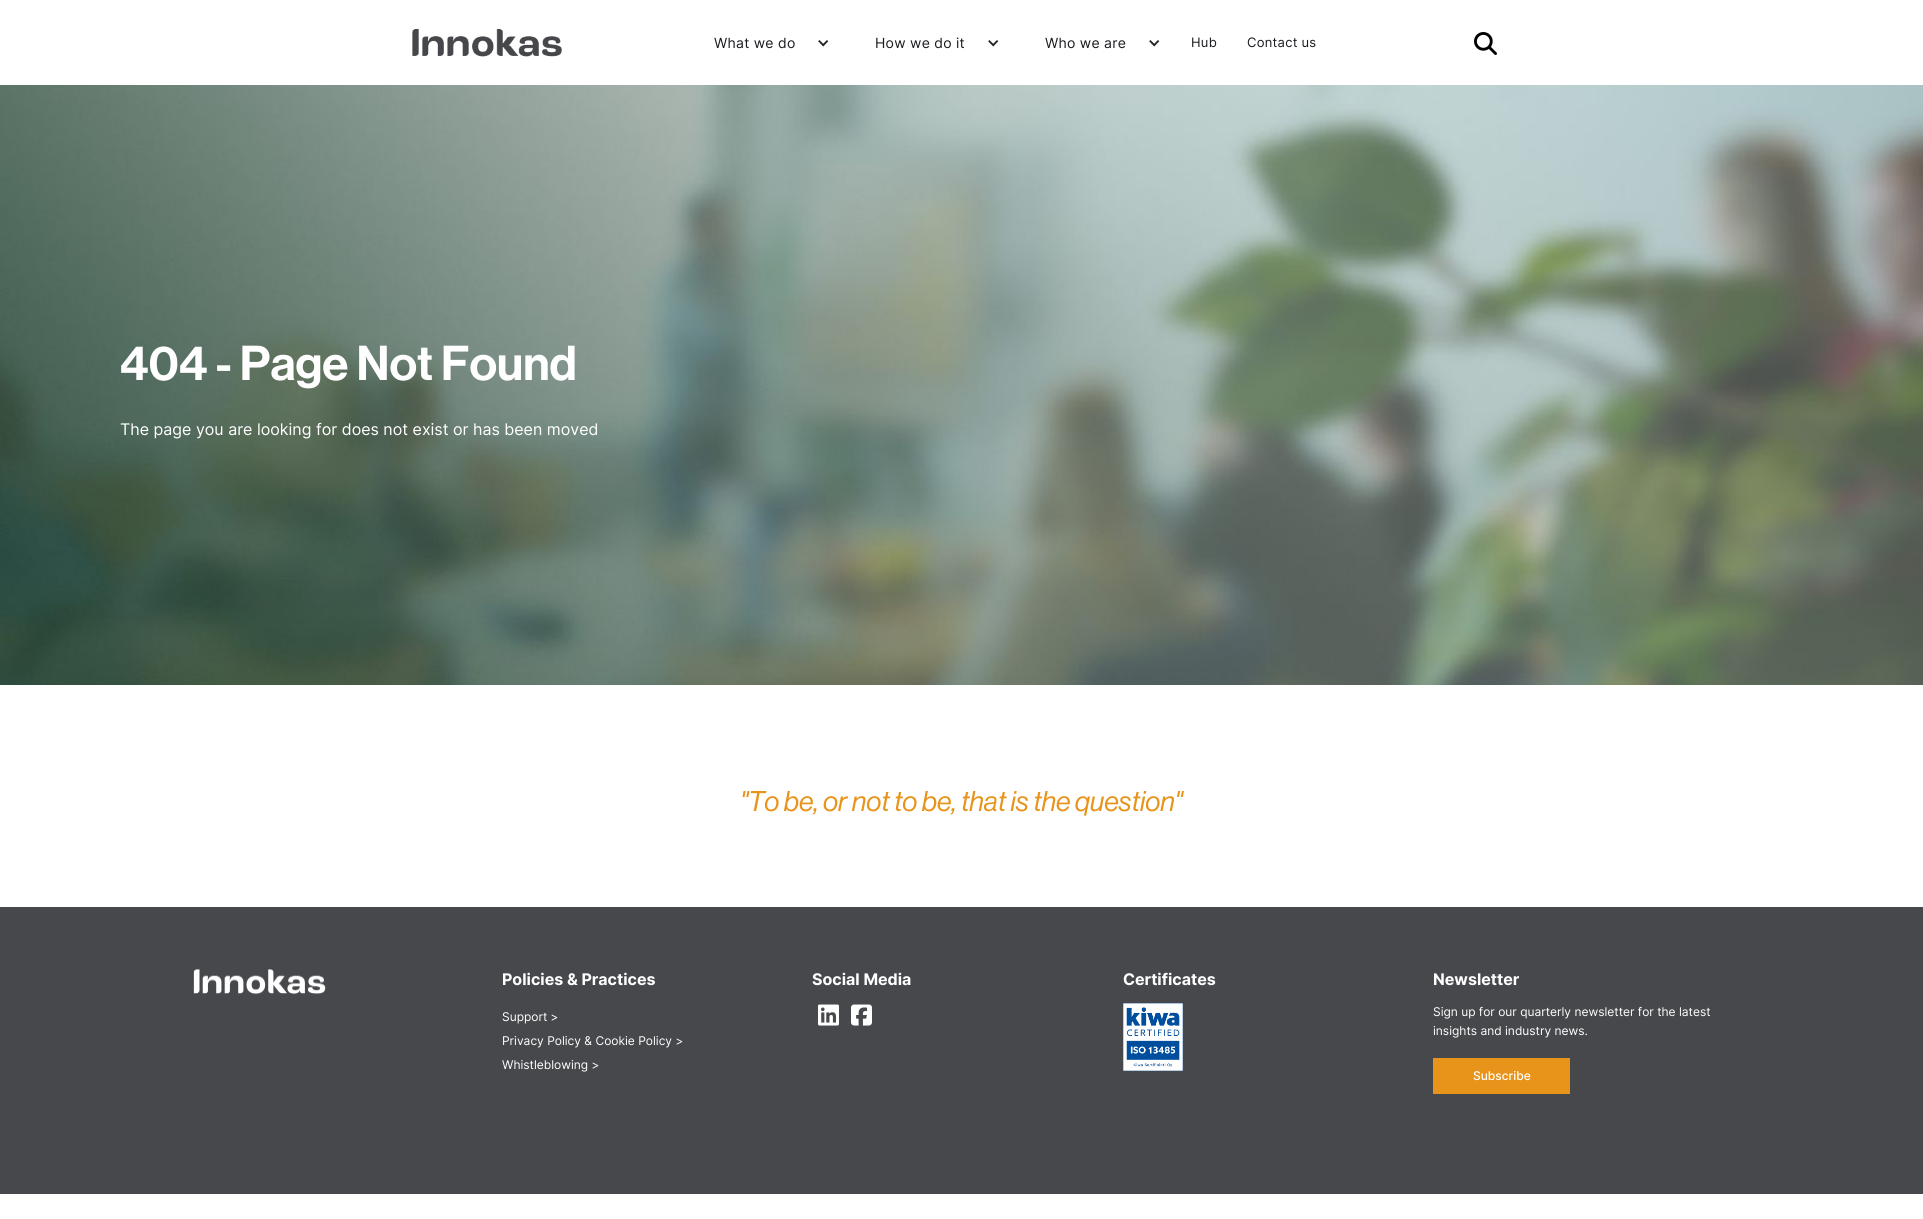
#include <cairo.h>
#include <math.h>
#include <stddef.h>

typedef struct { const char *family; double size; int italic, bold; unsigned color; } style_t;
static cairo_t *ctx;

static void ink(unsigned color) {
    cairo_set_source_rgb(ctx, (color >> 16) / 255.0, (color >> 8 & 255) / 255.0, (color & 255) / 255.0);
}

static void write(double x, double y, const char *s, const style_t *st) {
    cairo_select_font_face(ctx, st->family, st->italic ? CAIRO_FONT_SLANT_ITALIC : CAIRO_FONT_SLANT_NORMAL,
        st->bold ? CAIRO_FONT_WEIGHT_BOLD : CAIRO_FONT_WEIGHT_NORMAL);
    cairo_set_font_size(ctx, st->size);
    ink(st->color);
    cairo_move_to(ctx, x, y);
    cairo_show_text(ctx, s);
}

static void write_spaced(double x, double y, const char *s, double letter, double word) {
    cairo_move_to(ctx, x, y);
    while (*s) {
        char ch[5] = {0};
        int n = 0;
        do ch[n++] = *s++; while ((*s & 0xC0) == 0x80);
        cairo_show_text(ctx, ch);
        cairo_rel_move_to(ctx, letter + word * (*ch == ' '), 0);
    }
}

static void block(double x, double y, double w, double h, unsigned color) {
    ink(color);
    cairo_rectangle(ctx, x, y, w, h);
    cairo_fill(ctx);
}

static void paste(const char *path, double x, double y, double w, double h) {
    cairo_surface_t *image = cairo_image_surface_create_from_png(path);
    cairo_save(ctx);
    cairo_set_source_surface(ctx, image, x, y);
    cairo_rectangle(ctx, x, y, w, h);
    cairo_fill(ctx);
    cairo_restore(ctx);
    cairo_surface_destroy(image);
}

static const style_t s1 = {"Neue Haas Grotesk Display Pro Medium", 48, 0, 0, 0xffffff};
static const style_t s2 = {"Inter", 16, 0, 0, 0xffffff};
static const style_t s3 = {"Neue Haas Grotesk Display Pro Medium", 28, 1, 0, 0xe8931a};
static const style_t s4 = {"Inter", 16, 0, 1, 0xffffff};
static const style_t s5 = {"Inter", 12, 0, 0, 0xffffff};
static const style_t s6 = {"Inter Medium", 12, 0, 0, 0xffffff};

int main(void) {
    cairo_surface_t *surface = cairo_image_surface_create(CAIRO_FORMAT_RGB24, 1923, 1219);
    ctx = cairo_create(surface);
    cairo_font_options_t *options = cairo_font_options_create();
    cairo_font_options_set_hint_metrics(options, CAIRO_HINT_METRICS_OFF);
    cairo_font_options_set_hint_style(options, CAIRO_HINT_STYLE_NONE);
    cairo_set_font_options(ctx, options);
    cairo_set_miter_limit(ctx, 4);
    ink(0xffffff);
    cairo_paint(ctx);
    paste("pic1.png", 412, 29, 150, 28);
    cairo_select_font_face(ctx, "Inter", CAIRO_FONT_SLANT_NORMAL, CAIRO_FONT_WEIGHT_NORMAL);
    cairo_set_font_size(ctx, 14);
    ink(0x1a1b1f);
    write_spaced(714, 48, "What we do", 0.25, 0);
    paste("pic2.png", 818, 40, 11, 7);
    write_spaced(875, 48, "How we do it", 0.25, 0);
    paste("pic2.png", 988, 40, 11, 7);
    write_spaced(1045, 48, "Who we are", 0.25, 0);
    paste("pic2.png", 1149, 40, 11, 7);
    cairo_set_font_size(ctx, 13);
    write_spaced(1191, 47, "Hub", 0.25, 0);
    write_spaced(1247, 47, "Contact us", 0.25, 0);
    paste("pic3.png", 1474, 32, 23, 23);
    paste("pic4.png", 0, 85, 1923, 600);
    write(120, 380, "404 - Page Not Found", &s1);
    write(120, 435, "The page you are looking for does not exist or has been moved", &s2);
    write(740, 811, "\"To be, or not to be, that is the question\"", &s3);
    block(0, 907, 1923, 287, 0x46484c);
    paste("pic5.png", 193, 969, 133, 26);
    write(502, 985, "Policies & Practices", &s4);
    write(502, 1021, "Support >", &s5);
    write(502, 1045, "Privacy Policy & Cookie Policy >", &s5);
    write(502, 1069, "Whistleblowing >", &s5);
    write(812, 985, "Social Media", &s4);
    paste("pic6.png", 818, 1004, 21, 22);
    paste("pic7.png", 851, 1004, 21, 22);
    write(1123, 985, "Certificates", &s4);
    paste("pic8.png", 1123, 1003, 60, 68);
    write(1433, 985, "Newsletter", &s4);
    write(1433, 1016, "Sign up for our quarterly newsletter for the latest", &s5);
    write(1433, 1035, "insights and industry news.", &s5);
    block(1433, 1058, 137, 36, 0xe8931a);
    write(1473, 1080, "Subscribe", &s6);
    cairo_surface_write_to_png(surface, "screenshot.png");
    cairo_font_options_destroy(options);
    cairo_destroy(ctx);
    cairo_surface_destroy(surface);
    return 0;
}
